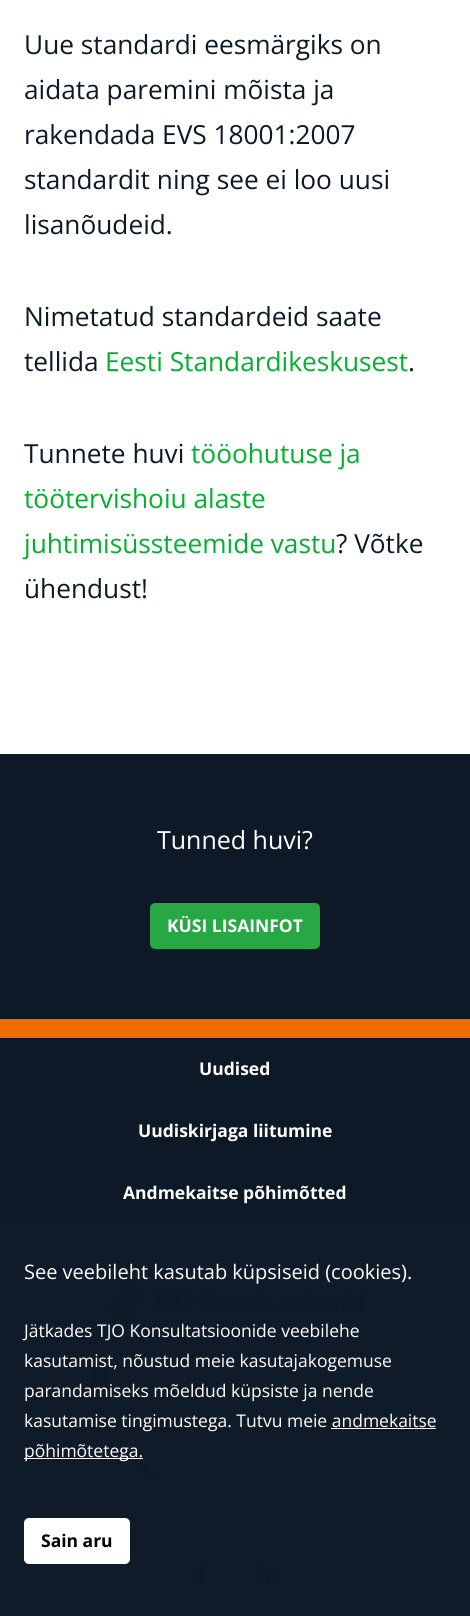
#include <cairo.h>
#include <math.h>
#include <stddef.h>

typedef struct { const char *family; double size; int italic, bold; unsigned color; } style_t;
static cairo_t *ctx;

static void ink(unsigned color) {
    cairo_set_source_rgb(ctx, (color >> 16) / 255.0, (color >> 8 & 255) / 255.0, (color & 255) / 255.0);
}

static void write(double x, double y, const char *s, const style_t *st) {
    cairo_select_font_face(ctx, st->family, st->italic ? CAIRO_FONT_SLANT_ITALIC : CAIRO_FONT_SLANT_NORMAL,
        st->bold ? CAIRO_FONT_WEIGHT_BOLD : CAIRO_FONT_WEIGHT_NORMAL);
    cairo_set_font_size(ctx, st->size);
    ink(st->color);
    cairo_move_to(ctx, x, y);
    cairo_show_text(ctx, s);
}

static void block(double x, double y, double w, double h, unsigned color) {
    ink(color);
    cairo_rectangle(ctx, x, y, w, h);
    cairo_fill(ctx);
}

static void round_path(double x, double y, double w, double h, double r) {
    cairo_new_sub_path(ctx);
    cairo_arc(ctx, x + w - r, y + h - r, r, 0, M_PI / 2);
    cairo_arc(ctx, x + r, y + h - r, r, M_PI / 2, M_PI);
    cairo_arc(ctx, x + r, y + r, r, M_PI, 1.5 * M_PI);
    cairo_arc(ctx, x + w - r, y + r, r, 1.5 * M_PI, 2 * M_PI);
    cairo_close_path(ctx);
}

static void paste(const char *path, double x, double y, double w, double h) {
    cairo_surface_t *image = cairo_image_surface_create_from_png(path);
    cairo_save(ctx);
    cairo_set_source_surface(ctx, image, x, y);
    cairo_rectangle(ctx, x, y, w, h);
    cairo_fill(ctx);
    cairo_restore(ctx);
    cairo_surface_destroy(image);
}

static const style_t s1 = {"Open Sans", 26.25, 0, 0, 0x0d1926};
static const style_t s2 = {"Open Sans", 26.25, 0, 0, 0x00b02e};
static const style_t s3 = {"Open Sans", 25, 0, 0, 0xffffff};
static const style_t s4 = {"Open Sans", 17.5, 0, 1, 0xffffff};
static const style_t s5 = {"Open Sans", 20, 0, 0, 0xffffff};
static const style_t s6 = {"Open Sans", 17.5, 0, 0, 0xffffff};
static const style_t s7 = {"Open Sans", 17.5, 0, 1, 0x000000};

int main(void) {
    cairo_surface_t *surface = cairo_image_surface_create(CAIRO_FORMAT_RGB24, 470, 1616);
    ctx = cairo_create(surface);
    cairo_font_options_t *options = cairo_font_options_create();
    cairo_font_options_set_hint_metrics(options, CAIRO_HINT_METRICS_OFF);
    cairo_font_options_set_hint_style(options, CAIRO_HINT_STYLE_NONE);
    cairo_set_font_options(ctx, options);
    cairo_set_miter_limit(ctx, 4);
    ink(0xffffff);
    cairo_paint(ctx);
    block(0, 1224, 470, 392, 0x0f1b28);
    write(24, 54, "Uue standardi eesmärgiks on", &s1);
    write(24, 99, "aidata paremini mõista ja", &s1);
    write(24, 144, "rakendada EVS 18001:2007", &s1);
    write(24, 189, "standardit ning see ei loo uusi", &s1);
    write(24, 234, "lisanõudeid.", &s1);
    write(24, 326, "Nimetatud standardeid saate", &s1);
    write(24, 371, "tellida", &s1);
    write(105, 371, "Eesti Standardikeskusest", &s2);
    write(408, 371, ".", &s1);
    write(24, 463, "Tunnete huvi", &s1);
    write(191, 463, "tööohutuse ja", &s2);
    write(24, 508, "töötervishoiu alaste", &s2);
    write(24, 553, "juhtimisüssteemide vastu", &s2);
    write(336, 553, "? Võtke", &s1);
    write(24, 598, "ühendust!", &s1);
    block(0, 754, 470, 265, 0x0d1926);
    write(157, 849, "Tunned huvi?", &s3);
    ink(0x28a745);
    round_path(151.5, 904.5, 167, 43, 3.5);
    cairo_fill_preserve(ctx);
    cairo_set_line_width(ctx, 3);
    cairo_stroke(ctx);
    write(167, 932, "KÜSI LISAINFOT", &s4);
    block(0, 1019, 470, 19, 0xef6c00);
    block(0, 1038, 470, 186, 0x0d1926);
    write(199, 1075, "Uudised", &s4);
    write(138, 1137, "Uudiskirjaga liitumine", &s4);
    write(123, 1199, "Andmekaitse põhimõtted", &s4);
    paste("pic1.png", 107, 1273, 256, 59);
    paste("pic2.png", 92, 1368, 16, 22);
    paste("pic3.png", 159, 1416, 20, 15);
    paste("pic4.png", 142, 1462, 16, 16);
    paste("pic5.png", 196, 1565, 11, 20);
    paste("pic6.png", 258, 1565, 21, 20);
    write(24, 1279, "See veebileht kasutab küpsiseid (cookies).", &s5);
    write(24, 1337, "Jätkades TJO Konsultatsioonide veebilehe", &s6);
    write(24, 1367, "kasutamist, nõustud meie kasutajakogemuse", &s6);
    write(24, 1397, "parandamiseks mõeldud küpsiste ja nende", &s6);
    write(24, 1427, "kasutamise tingimustega. Tutvu meie andmekaitse", &s6);
    block(24, 1458, 119, 1, 0xffffff);
    write(24, 1457, "põhimõtetega.", &s6);
    block(331, 1428, 105, 1, 0xffffff);
    round_path(24, 1518, 106, 46, 5);
    cairo_fill(ctx);
    write(41, 1547, "Sain aru", &s7);
    cairo_surface_write_to_png(surface, "screenshot.png");
    cairo_font_options_destroy(options);
    cairo_destroy(ctx);
    cairo_surface_destroy(surface);
    return 0;
}
